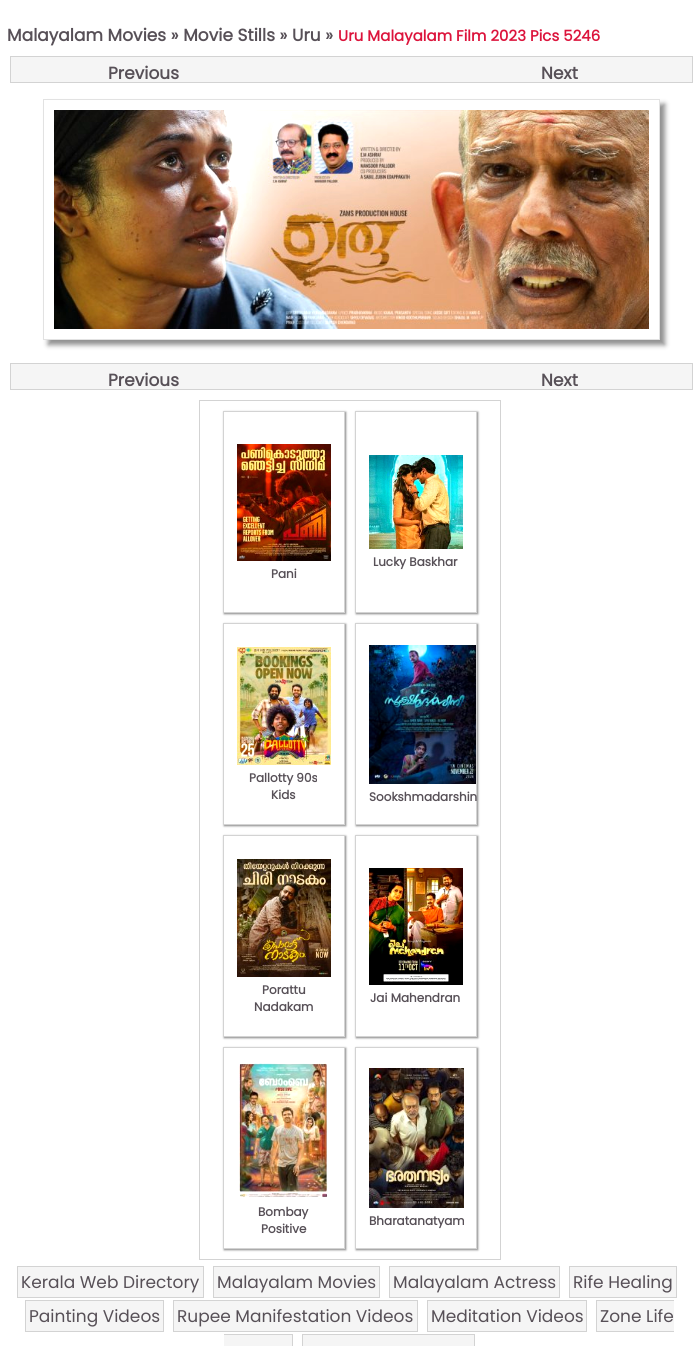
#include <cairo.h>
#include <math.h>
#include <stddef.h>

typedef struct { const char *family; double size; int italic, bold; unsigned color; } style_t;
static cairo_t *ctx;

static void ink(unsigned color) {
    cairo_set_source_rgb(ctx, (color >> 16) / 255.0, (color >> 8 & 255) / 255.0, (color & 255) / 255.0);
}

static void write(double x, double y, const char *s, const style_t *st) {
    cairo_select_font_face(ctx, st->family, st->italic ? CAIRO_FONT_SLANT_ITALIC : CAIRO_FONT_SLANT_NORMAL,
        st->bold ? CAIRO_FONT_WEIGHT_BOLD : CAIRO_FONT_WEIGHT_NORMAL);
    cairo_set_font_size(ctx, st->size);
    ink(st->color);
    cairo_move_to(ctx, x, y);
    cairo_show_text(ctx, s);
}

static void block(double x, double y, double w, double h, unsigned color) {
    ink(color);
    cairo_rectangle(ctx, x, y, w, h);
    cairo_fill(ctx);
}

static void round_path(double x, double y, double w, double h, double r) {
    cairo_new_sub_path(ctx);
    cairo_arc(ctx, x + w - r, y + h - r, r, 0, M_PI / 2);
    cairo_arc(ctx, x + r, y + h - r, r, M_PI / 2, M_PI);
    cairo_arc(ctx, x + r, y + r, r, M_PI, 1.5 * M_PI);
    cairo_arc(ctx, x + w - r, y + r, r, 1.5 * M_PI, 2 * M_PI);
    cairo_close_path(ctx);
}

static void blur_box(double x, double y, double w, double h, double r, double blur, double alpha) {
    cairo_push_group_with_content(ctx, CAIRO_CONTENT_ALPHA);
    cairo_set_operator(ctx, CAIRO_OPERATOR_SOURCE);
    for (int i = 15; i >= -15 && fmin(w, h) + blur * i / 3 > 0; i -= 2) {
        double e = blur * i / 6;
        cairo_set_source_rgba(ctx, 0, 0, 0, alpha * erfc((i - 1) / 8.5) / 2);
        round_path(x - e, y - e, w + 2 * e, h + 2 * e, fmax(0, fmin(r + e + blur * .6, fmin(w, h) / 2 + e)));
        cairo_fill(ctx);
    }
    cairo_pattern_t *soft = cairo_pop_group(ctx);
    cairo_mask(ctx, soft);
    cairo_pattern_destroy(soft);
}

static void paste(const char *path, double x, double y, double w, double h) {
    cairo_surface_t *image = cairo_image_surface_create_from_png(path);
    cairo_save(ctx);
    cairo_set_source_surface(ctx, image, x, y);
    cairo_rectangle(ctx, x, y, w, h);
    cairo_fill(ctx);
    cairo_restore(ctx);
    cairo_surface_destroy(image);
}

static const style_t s1 = {"Poppins", 17, 0, 1, 0x575057};
static const style_t s2 = {"Poppins", 15, 0, 1, 0xdc143c};
static const style_t s3 = {"Poppins", 12, 0, 1, 0x575057};
static const style_t s4 = {"Poppins", 17, 0, 0, 0x575057};

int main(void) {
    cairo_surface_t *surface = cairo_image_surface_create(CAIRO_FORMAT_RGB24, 699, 1346);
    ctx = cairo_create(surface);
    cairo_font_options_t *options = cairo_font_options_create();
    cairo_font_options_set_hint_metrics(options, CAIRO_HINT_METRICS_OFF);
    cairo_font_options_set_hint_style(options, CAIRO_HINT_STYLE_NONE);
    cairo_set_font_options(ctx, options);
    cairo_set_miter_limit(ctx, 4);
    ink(0xffffff);
    cairo_paint(ctx);
    write(7, 41, "Malayalam Movies » Movie Stills » Uru »", &s1);
    write(338, 41, "Uru Malayalam Film 2023 Pics 5246", &s2);
    ink(0xf5f5f5);
    cairo_rectangle(ctx, 10.5, 56.5, 682, 26);
    cairo_fill_preserve(ctx);
    ink(0xd3d3d3);
    cairo_set_line_width(ctx, 1);
    cairo_stroke(ctx);
    write(108, 79, "Previous", &s1);
    write(541, 79, "Next", &s1);
    cairo_save(ctx);
    cairo_set_fill_rule(ctx, CAIRO_FILL_RULE_EVEN_ODD);
    cairo_new_path(ctx);
    cairo_move_to(ctx, 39, 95);
    cairo_line_to(ctx, 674, 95);
    cairo_line_to(ctx, 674, 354);
    cairo_line_to(ctx, 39, 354);
    cairo_close_path(ctx);
    cairo_move_to(ctx, 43, 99);
    cairo_line_to(ctx, 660, 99);
    cairo_line_to(ctx, 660, 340);
    cairo_line_to(ctx, 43, 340);
    cairo_close_path(ctx);
    cairo_clip(ctx);
    ink(0x909090);
    blur_box(48, 104, 617, 241, 0, 2.5, 1);
    cairo_restore(ctx);
    cairo_rectangle(ctx, 43.5, 99.5, 616, 240);
    ink(0xe2e2e2);
    cairo_stroke(ctx);
    paste("pic1.png", 54, 110, 595, 219);
    ink(0xf5f5f5);
    cairo_rectangle(ctx, 10.5, 363.5, 682, 26);
    cairo_fill_preserve(ctx);
    ink(0xd3d3d3);
    cairo_stroke(ctx);
    write(108, 386, "Previous", &s1);
    write(541, 386, "Next", &s1);
    cairo_rectangle(ctx, 199.5, 400.5, 301, 859);
    ink(0xd3d3d3);
    cairo_stroke(ctx);
    cairo_save(ctx);
    cairo_set_fill_rule(ctx, CAIRO_FILL_RULE_EVEN_ODD);
    cairo_new_path(ctx);
    cairo_move_to(ctx, 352, 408);
    cairo_line_to(ctx, 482, 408);
    cairo_line_to(ctx, 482, 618);
    cairo_line_to(ctx, 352, 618);
    cairo_close_path(ctx);
    cairo_move_to(ctx, 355, 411);
    cairo_line_to(ctx, 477, 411);
    cairo_line_to(ctx, 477, 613);
    cairo_line_to(ctx, 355, 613);
    cairo_close_path(ctx);
    cairo_clip(ctx);
    ink(0x888888);
    blur_box(356, 412, 122, 202, 0, 1, 1);
    cairo_restore(ctx);
    cairo_rectangle(ctx, 355.5, 411.5, 121, 201);
    cairo_stroke(ctx);
    paste("pic2.png", 369, 455, 94, 94);
    write(373, 566, "Lucky Baskhar", &s3);
    cairo_save(ctx);
    cairo_set_fill_rule(ctx, CAIRO_FILL_RULE_EVEN_ODD);
    cairo_new_path(ctx);
    cairo_move_to(ctx, 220, 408);
    cairo_line_to(ctx, 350, 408);
    cairo_line_to(ctx, 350, 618);
    cairo_line_to(ctx, 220, 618);
    cairo_close_path(ctx);
    cairo_move_to(ctx, 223, 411);
    cairo_line_to(ctx, 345, 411);
    cairo_line_to(ctx, 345, 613);
    cairo_line_to(ctx, 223, 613);
    cairo_close_path(ctx);
    cairo_clip(ctx);
    ink(0x888888);
    blur_box(224, 412, 122, 202, 0, 1, 1);
    cairo_restore(ctx);
    cairo_rectangle(ctx, 223.5, 411.5, 121, 201);
    ink(0xd3d3d3);
    cairo_stroke(ctx);
    paste("pic3.png", 237, 444, 94, 117);
    write(271, 578, "Pani", &s3);
    cairo_save(ctx);
    cairo_set_fill_rule(ctx, CAIRO_FILL_RULE_EVEN_ODD);
    cairo_new_path(ctx);
    cairo_move_to(ctx, 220, 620);
    cairo_line_to(ctx, 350, 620);
    cairo_line_to(ctx, 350, 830);
    cairo_line_to(ctx, 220, 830);
    cairo_close_path(ctx);
    cairo_move_to(ctx, 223, 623);
    cairo_line_to(ctx, 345, 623);
    cairo_line_to(ctx, 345, 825);
    cairo_line_to(ctx, 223, 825);
    cairo_close_path(ctx);
    cairo_clip(ctx);
    ink(0x888888);
    blur_box(224, 624, 122, 202, 0, 1, 1);
    cairo_restore(ctx);
    cairo_rectangle(ctx, 223.5, 623.5, 121, 201);
    ink(0xd3d3d3);
    cairo_stroke(ctx);
    paste("pic4.png", 237, 647, 94, 118);
    write(249, 782, "Pallotty 90s", &s3);
    write(271, 799, "Kids", &s3);
    cairo_save(ctx);
    cairo_set_fill_rule(ctx, CAIRO_FILL_RULE_EVEN_ODD);
    cairo_new_path(ctx);
    cairo_move_to(ctx, 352, 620);
    cairo_line_to(ctx, 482, 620);
    cairo_line_to(ctx, 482, 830);
    cairo_line_to(ctx, 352, 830);
    cairo_close_path(ctx);
    cairo_move_to(ctx, 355, 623);
    cairo_line_to(ctx, 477, 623);
    cairo_line_to(ctx, 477, 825);
    cairo_line_to(ctx, 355, 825);
    cairo_close_path(ctx);
    cairo_clip(ctx);
    ink(0x888888);
    blur_box(356, 624, 122, 202, 0, 1, 1);
    cairo_restore(ctx);
    cairo_rectangle(ctx, 355.5, 623.5, 121, 201);
    ink(0xd3d3d3);
    cairo_stroke(ctx);
    paste("pic5.png", 369, 645, 107, 139);
    write(369, 801, "Sookshmadarshin", &s3);
    cairo_save(ctx);
    cairo_set_fill_rule(ctx, CAIRO_FILL_RULE_EVEN_ODD);
    cairo_new_path(ctx);
    cairo_move_to(ctx, 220, 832);
    cairo_line_to(ctx, 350, 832);
    cairo_line_to(ctx, 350, 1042);
    cairo_line_to(ctx, 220, 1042);
    cairo_close_path(ctx);
    cairo_move_to(ctx, 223, 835);
    cairo_line_to(ctx, 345, 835);
    cairo_line_to(ctx, 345, 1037);
    cairo_line_to(ctx, 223, 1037);
    cairo_close_path(ctx);
    cairo_clip(ctx);
    ink(0x888888);
    blur_box(224, 836, 122, 202, 0, 1, 1);
    cairo_restore(ctx);
    cairo_rectangle(ctx, 223.5, 835.5, 121, 201);
    ink(0xd3d3d3);
    cairo_stroke(ctx);
    paste("pic6.png", 237, 859, 94, 118);
    write(262, 994, "Porattu", &s3);
    write(254, 1011, "Nadakam", &s3);
    cairo_save(ctx);
    cairo_set_fill_rule(ctx, CAIRO_FILL_RULE_EVEN_ODD);
    cairo_new_path(ctx);
    cairo_move_to(ctx, 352, 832);
    cairo_line_to(ctx, 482, 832);
    cairo_line_to(ctx, 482, 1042);
    cairo_line_to(ctx, 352, 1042);
    cairo_close_path(ctx);
    cairo_move_to(ctx, 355, 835);
    cairo_line_to(ctx, 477, 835);
    cairo_line_to(ctx, 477, 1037);
    cairo_line_to(ctx, 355, 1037);
    cairo_close_path(ctx);
    cairo_clip(ctx);
    ink(0x888888);
    blur_box(356, 836, 122, 202, 0, 1, 1);
    cairo_restore(ctx);
    cairo_rectangle(ctx, 355.5, 835.5, 121, 201);
    ink(0xd3d3d3);
    cairo_stroke(ctx);
    paste("pic7.png", 369, 868, 94, 117);
    write(370, 1002, "Jai Mahendran", &s3);
    cairo_save(ctx);
    cairo_set_fill_rule(ctx, CAIRO_FILL_RULE_EVEN_ODD);
    cairo_new_path(ctx);
    cairo_move_to(ctx, 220, 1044);
    cairo_line_to(ctx, 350, 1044);
    cairo_line_to(ctx, 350, 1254);
    cairo_line_to(ctx, 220, 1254);
    cairo_close_path(ctx);
    cairo_move_to(ctx, 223, 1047);
    cairo_line_to(ctx, 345, 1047);
    cairo_line_to(ctx, 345, 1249);
    cairo_line_to(ctx, 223, 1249);
    cairo_close_path(ctx);
    cairo_clip(ctx);
    ink(0x888888);
    blur_box(224, 1048, 122, 202, 0, 1, 1);
    cairo_restore(ctx);
    cairo_rectangle(ctx, 223.5, 1047.5, 121, 201);
    ink(0xd3d3d3);
    cairo_stroke(ctx);
    paste("pic8.png", 239, 1063, 89, 136);
    write(258, 1216, "Bombay", &s3);
    write(261, 1233, "Positive", &s3);
    cairo_save(ctx);
    cairo_set_fill_rule(ctx, CAIRO_FILL_RULE_EVEN_ODD);
    cairo_new_path(ctx);
    cairo_move_to(ctx, 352, 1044);
    cairo_line_to(ctx, 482, 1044);
    cairo_line_to(ctx, 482, 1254);
    cairo_line_to(ctx, 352, 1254);
    cairo_close_path(ctx);
    cairo_move_to(ctx, 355, 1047);
    cairo_line_to(ctx, 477, 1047);
    cairo_line_to(ctx, 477, 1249);
    cairo_line_to(ctx, 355, 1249);
    cairo_close_path(ctx);
    cairo_clip(ctx);
    ink(0x888888);
    blur_box(356, 1048, 122, 202, 0, 1, 1);
    cairo_restore(ctx);
    cairo_rectangle(ctx, 355.5, 1047.5, 121, 201);
    ink(0xd3d3d3);
    cairo_stroke(ctx);
    paste("pic9.png", 369, 1068, 95, 140);
    write(369, 1225, "Bharatanatyam", &s3);
    ink(0xf5f5f5);
    cairo_rectangle(ctx, 17.5, 1266.5, 186, 31);
    cairo_fill_preserve(ctx);
    ink(0xd3d3d3);
    cairo_stroke(ctx);
    write(21, 1288, "Kerala Web Directory", &s4);
    ink(0xf5f5f5);
    cairo_rectangle(ctx, 213.5, 1266.5, 166, 31);
    cairo_fill_preserve(ctx);
    ink(0xd3d3d3);
    cairo_stroke(ctx);
    write(217, 1288, "Malayalam Movies", &s4);
    ink(0xf5f5f5);
    cairo_rectangle(ctx, 389.5, 1266.5, 170, 31);
    cairo_fill_preserve(ctx);
    ink(0xd3d3d3);
    cairo_stroke(ctx);
    write(393, 1288, "Malayalam Actress", &s4);
    ink(0xf5f5f5);
    cairo_rectangle(ctx, 569.5, 1266.5, 107, 31);
    cairo_fill_preserve(ctx);
    ink(0xd3d3d3);
    cairo_stroke(ctx);
    write(573, 1288, "Rife Healing", &s4);
    ink(0xf5f5f5);
    cairo_rectangle(ctx, 25.5, 1300.5, 138, 31);
    cairo_fill_preserve(ctx);
    ink(0xd3d3d3);
    cairo_stroke(ctx);
    write(29, 1322, "Painting Videos", &s4);
    ink(0xf5f5f5);
    cairo_rectangle(ctx, 173.5, 1300.5, 244, 31);
    cairo_fill_preserve(ctx);
    ink(0xd3d3d3);
    cairo_stroke(ctx);
    write(177, 1322, "Rupee Manifestation Videos", &s4);
    ink(0xf5f5f5);
    cairo_rectangle(ctx, 427.5, 1300.5, 159, 31);
    cairo_fill_preserve(ctx);
    ink(0xd3d3d3);
    cairo_stroke(ctx);
    write(431, 1322, "Meditation Videos", &s4);
    block(597, 1301, 77, 30, 0xf5f5f5);
    write(600, 1322, "Zone Life", &s4);
    block(596, 1300, 78, 1, 0xd3d3d3);
    block(596, 1331, 78, 1, 0xd3d3d3);
    block(596, 1300, 1, 32, 0xd3d3d3);
    block(224, 1335, 68, 11, 0xf5f5f5);
    block(224, 1334, 69, 1, 0xd3d3d3);
    block(292, 1334, 1, 12, 0xd3d3d3);
    ink(0xf5f5f5);
    cairo_rectangle(ctx, 302.5, 1334.5, 172, 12);
    cairo_fill_preserve(ctx);
    ink(0xd3d3d3);
    cairo_stroke(ctx);
    cairo_surface_write_to_png(surface, "screenshot.png");
    cairo_font_options_destroy(options);
    cairo_destroy(ctx);
    cairo_surface_destroy(surface);
    return 0;
}
